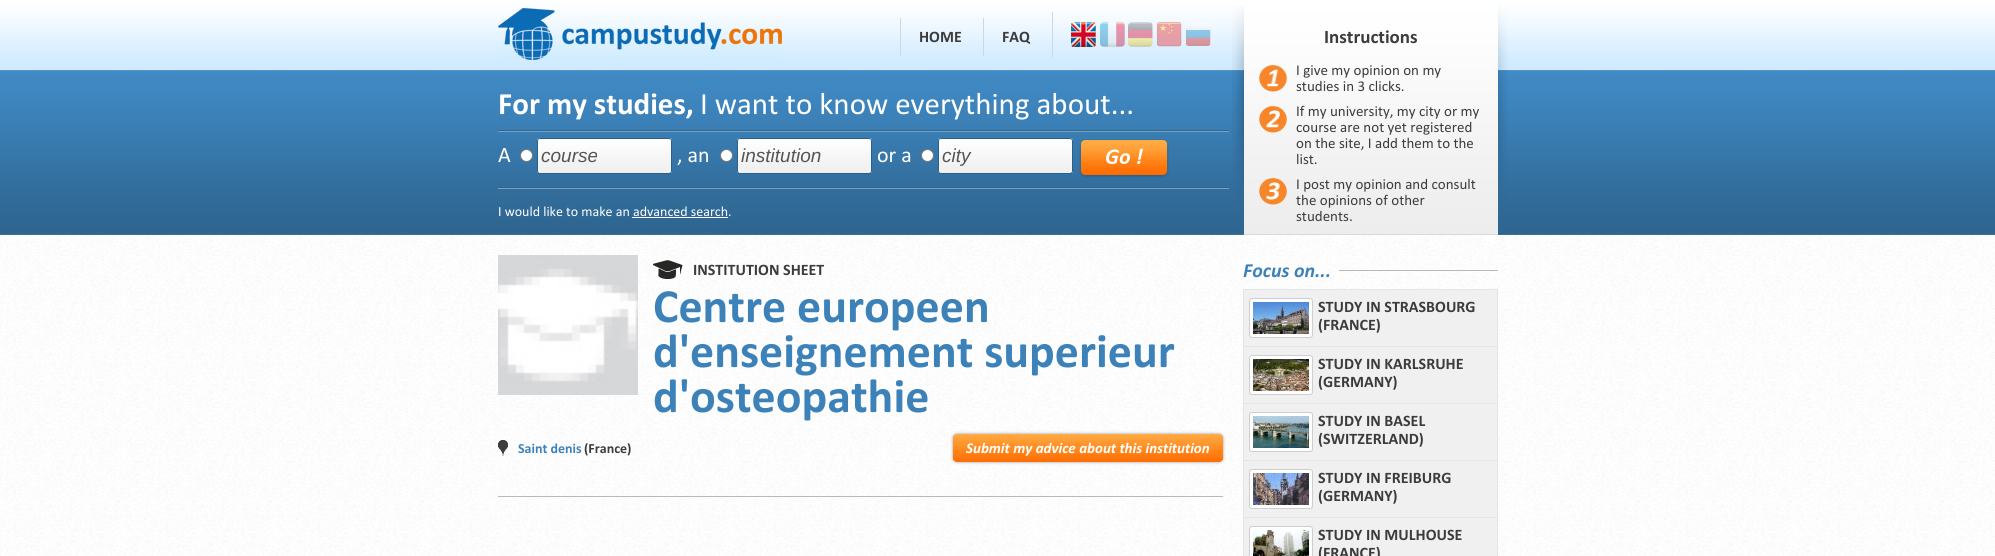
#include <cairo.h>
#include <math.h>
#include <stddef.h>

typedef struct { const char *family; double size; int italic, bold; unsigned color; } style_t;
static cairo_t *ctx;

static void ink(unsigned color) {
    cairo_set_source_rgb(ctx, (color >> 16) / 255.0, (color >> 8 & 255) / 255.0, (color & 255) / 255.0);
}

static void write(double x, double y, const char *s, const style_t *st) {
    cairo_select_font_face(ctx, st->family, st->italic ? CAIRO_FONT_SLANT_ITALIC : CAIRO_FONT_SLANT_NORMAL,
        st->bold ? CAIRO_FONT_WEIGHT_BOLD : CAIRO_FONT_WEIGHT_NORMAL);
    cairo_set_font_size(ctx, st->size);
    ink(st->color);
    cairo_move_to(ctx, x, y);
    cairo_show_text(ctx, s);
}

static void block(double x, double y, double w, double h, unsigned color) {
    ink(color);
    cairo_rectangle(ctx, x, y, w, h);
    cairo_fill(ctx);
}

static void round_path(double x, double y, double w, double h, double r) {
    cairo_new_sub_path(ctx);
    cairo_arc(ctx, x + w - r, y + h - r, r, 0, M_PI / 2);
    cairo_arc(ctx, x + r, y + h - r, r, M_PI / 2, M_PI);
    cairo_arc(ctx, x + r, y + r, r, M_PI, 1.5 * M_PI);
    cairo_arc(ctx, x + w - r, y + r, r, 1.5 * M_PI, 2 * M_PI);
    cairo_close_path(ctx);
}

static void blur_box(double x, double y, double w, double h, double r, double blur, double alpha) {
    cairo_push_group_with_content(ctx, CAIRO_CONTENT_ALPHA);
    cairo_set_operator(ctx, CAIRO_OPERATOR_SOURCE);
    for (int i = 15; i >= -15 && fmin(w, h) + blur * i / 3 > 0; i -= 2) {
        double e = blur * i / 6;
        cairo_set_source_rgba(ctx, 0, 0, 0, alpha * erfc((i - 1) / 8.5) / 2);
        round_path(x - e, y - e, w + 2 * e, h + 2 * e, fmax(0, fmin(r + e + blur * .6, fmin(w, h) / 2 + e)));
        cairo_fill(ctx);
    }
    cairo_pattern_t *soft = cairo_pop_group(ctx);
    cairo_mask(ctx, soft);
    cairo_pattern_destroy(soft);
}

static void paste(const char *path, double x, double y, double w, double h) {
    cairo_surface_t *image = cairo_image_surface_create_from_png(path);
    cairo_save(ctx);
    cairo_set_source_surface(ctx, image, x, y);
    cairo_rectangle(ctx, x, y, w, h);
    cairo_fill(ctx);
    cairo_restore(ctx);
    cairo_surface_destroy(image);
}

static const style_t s1 = {"Calibri", 16, 0, 1, 0x3c3c3c};
static const style_t s2 = {"Calibri", 31, 0, 1, 0xffffff};
static const style_t s3 = {"Calibri", 31, 0, 0, 0xffffff};
static const style_t s4 = {"Calibri", 22, 0, 0, 0xffffff};
static const style_t s5 = {"Liberation Sans", 19, 1, 0, 0x555555};
static const style_t s6 = {"Calibri", 14, 0, 0, 0xffffff};
static const style_t s7 = {"Calibri", 19, 0, 1, 0x3c3c3c};
static const style_t s8 = {"Calibri", 15, 0, 0, 0x3c3c3c};
static const style_t s9 = {"Calibri", 48, 0, 1, 0x3c82b9};
static const style_t s10 = {"Calibri", 14, 0, 1, 0x3c82b9};
static const style_t s11 = {"Calibri", 14, 0, 1, 0x3c3c3c};
static const style_t s12 = {"Calibri", 15, 1, 1, 0xffffff};
static const style_t s13 = {"Calibri", 20, 1, 1, 0x3c82b9};

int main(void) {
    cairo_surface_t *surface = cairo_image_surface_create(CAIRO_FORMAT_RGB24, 1995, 556);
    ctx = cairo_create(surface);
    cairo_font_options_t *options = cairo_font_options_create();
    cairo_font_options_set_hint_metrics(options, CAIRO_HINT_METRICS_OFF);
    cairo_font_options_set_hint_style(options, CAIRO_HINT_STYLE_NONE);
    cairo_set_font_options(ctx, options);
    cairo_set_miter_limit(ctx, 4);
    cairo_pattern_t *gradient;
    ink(0xffffff);
    cairo_paint(ctx);
    paste("pic1.png", 0, 235, 1995, 321);
    paste("pic2.png", 0, 0, 1995, 235);
    paste("pic3.png", 498, 8, 284, 52);
    write(919, 42, "HOME", &s1);
    block(900, 18, 1, 38, 0xcdd7df);
    write(1002, 42, "FAQ", &s1);
    block(983, 18, 1, 38, 0xcdd7df);
    block(1052, 12, 1, 45, 0xcdd7df);
    paste("pic4.png", 1071, 22, 25, 25);
    paste("pic5.png", 1100, 22, 25, 25);
    paste("pic6.png", 1128, 22, 25, 25);
    paste("pic7.png", 1157, 22, 25, 25);
    paste("pic8.png", 1186, 22, 25, 24);
    write(498, 114, "For my studies,", &s2);
    write(700, 114, "I want to know everything about...", &s3);
    paste("pic9.png", 498, 130, 731, 2);
    write(498, 162, "A", &s4);
    cairo_new_path(ctx);
    cairo_arc(ctx, 526.5, 155.5, 6, 0, 2 * M_PI);
    cairo_fill_preserve(ctx);
    ink(0x767676);
    cairo_set_line_width(ctx, 1);
    cairo_stroke(ctx);
    paste("pic10.png", 537, 138, 135, 35);
    round_path(537.5, 138.5, 134, 35, 2.5);
    ink(0x27618f);
    cairo_stroke(ctx);
    write(541, 162, "course", &s5);
    write(677, 162, ", an", &s4);
    cairo_new_path(ctx);
    cairo_arc(ctx, 726.5, 155.5, 6, 0, 2 * M_PI);
    cairo_fill_preserve(ctx);
    ink(0x767676);
    cairo_stroke(ctx);
    paste("pic10.png", 737, 138, 135, 35);
    round_path(737.5, 138.5, 134, 35, 2.5);
    ink(0x27618f);
    cairo_stroke(ctx);
    write(741, 162, "institution", &s5);
    write(877, 162, "or a", &s4);
    cairo_new_path(ctx);
    cairo_arc(ctx, 927.5, 155.5, 6, 0, 2 * M_PI);
    cairo_fill_preserve(ctx);
    ink(0x767676);
    cairo_stroke(ctx);
    paste("pic10.png", 938, 138, 135, 35);
    round_path(938.5, 138.5, 134, 35, 2.5);
    ink(0x27618f);
    cairo_stroke(ctx);
    write(942, 162, "city", &s5);
    paste("pic11.png", 1079, 139, 90, 39);
    paste("pic9.png", 498, 187, 731, 2);
    write(498, 216, "I would like to make an advanced search.", &s6);
    block(632, 217, 96, 1, 0xffffff);
    paste("pic12.png", 1232, 5, 276, 230);
    write(1324, 43, "Instructions", &s7);
    paste("pic13.png", 1259, 65, 28, 140);
    write(1296, 75, "I give my opinion on my", &s8);
    write(1296, 91, "studies in 3 clicks.", &s8);
    write(1296, 116, "If my university, my city or my", &s8);
    write(1296, 132, "course are not yet registered", &s8);
    write(1296, 148, "on the site, I add them to the", &s8);
    write(1296, 164, "list.", &s8);
    write(1296, 189, "I post my opinion and consult", &s8);
    write(1296, 205, "the opinions of other", &s8);
    write(1296, 221, "students.", &s8);
    paste("pic14.png", 498, 255, 140, 140);
    paste("pic15.png", 653, 260, 30, 19);
    write(693, 275, "INSTITUTION SHEET", &s1);
    write(653, 322, "Centre europeen", &s9);
    write(653, 367, "d'enseignement superieur", &s9);
    write(653, 412, "d'osteopathie", &s9);
    paste("pic16.png", 498, 440, 10, 16);
    write(518, 453, "Saint denis", &s10);
    write(584, 453, "(France)", &s11);
    ink(0x000000);
    blur_box(953, 434, 270, 28, 4, 1.5, 0.4);
    gradient = cairo_pattern_create_linear(953, 434, 953, 462);
    cairo_pattern_add_color_stop_rgba(gradient, 0, 1, 0.671, 0.267, 1);
    cairo_pattern_add_color_stop_rgba(gradient, 1, 1, 0.427, 0.004, 1);
    cairo_set_source(ctx, gradient);
    cairo_pattern_destroy(gradient);
    round_path(953, 434, 270, 28, 4);
    cairo_fill(ctx);
    write(966, 453, "Submit my advice about this institution", &s12);
    block(498, 496, 725, 1, 0xb9b9b9);
    block(1339, 270, 159, 1, 0xb9b9b9);
    paste("pic17.png", 1243, 260, 96, 21);
    write(1243, 277, "Focus on...", &s13);
    ink(0xf0f0f0);
    cairo_rectangle(ctx, 1243.5, 289.5, 254, 57);
    cairo_fill_preserve(ctx);
    ink(0xe5e5e5);
    cairo_stroke(ctx);
    ink(0xffffff);
    round_path(1249.5, 298.5, 63, 39, 2.5);
    cairo_fill_preserve(ctx);
    ink(0xcecece);
    cairo_stroke(ctx);
    paste("pic18.png", 1253, 302, 56, 32);
    write(1318, 312, "STUDY IN STRASBOURG", &s1);
    write(1318, 330, "(FRANCE)", &s1);
    block(1244, 347, 253, 56, 0xf0f0f0);
    block(1497, 347, 1, 209, 0xe5e5e5);
    block(1243, 403, 255, 1, 0xe5e5e5);
    block(1243, 347, 1, 57, 0xe5e5e5);
    ink(0xffffff);
    round_path(1249.5, 355.5, 63, 39, 2.5);
    cairo_fill_preserve(ctx);
    ink(0xcecece);
    cairo_stroke(ctx);
    paste("pic19.png", 1253, 359, 56, 32);
    write(1318, 369, "STUDY IN KARLSRUHE", &s1);
    write(1318, 387, "(GERMANY)", &s1);
    block(1244, 404, 253, 56, 0xf0f0f0);
    block(1243, 460, 255, 1, 0xe5e5e5);
    block(1243, 404, 1, 57, 0xe5e5e5);
    ink(0xffffff);
    round_path(1249.5, 412.5, 63, 39, 2.5);
    cairo_fill_preserve(ctx);
    ink(0xcecece);
    cairo_stroke(ctx);
    paste("pic20.png", 1253, 416, 56, 32);
    write(1318, 426, "STUDY IN BASEL", &s1);
    write(1318, 444, "(SWITZERLAND)", &s1);
    block(1244, 461, 253, 56, 0xf0f0f0);
    block(1243, 517, 255, 1, 0xe5e5e5);
    block(1243, 461, 1, 95, 0xe5e5e5);
    ink(0xffffff);
    round_path(1249.5, 469.5, 63, 39, 2.5);
    cairo_fill_preserve(ctx);
    ink(0xcecece);
    cairo_stroke(ctx);
    paste("pic21.png", 1253, 473, 56, 32);
    write(1318, 483, "STUDY IN FREIBURG", &s1);
    write(1318, 501, "(GERMANY)", &s1);
    block(1244, 518, 253, 38, 0xf0f0f0);
    ink(0xffffff);
    round_path(1249.5, 526.5, 63, 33, 2.5);
    cairo_fill_preserve(ctx);
    ink(0xcecece);
    cairo_stroke(ctx);
    paste("pic22.png", 1253, 530, 56, 26);
    write(1318, 540, "STUDY IN MULHOUSE", &s1);
    write(1318, 558, "(FRANCE)", &s1);
    cairo_surface_write_to_png(surface, "screenshot.png");
    cairo_font_options_destroy(options);
    cairo_destroy(ctx);
    cairo_surface_destroy(surface);
    return 0;
}
